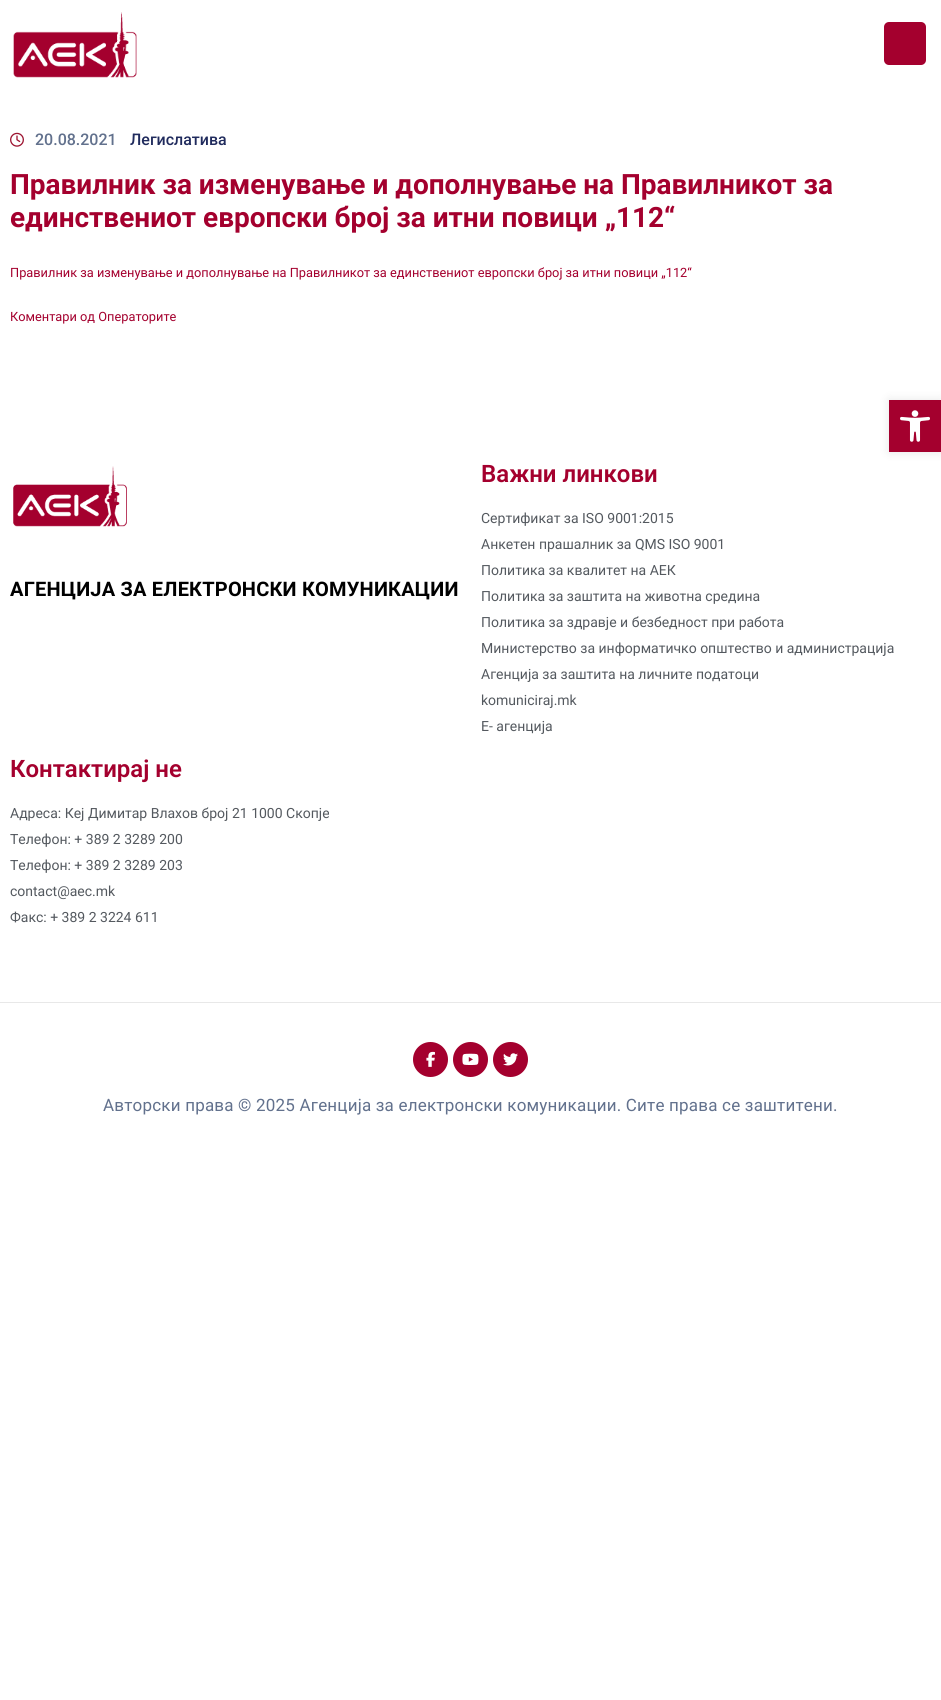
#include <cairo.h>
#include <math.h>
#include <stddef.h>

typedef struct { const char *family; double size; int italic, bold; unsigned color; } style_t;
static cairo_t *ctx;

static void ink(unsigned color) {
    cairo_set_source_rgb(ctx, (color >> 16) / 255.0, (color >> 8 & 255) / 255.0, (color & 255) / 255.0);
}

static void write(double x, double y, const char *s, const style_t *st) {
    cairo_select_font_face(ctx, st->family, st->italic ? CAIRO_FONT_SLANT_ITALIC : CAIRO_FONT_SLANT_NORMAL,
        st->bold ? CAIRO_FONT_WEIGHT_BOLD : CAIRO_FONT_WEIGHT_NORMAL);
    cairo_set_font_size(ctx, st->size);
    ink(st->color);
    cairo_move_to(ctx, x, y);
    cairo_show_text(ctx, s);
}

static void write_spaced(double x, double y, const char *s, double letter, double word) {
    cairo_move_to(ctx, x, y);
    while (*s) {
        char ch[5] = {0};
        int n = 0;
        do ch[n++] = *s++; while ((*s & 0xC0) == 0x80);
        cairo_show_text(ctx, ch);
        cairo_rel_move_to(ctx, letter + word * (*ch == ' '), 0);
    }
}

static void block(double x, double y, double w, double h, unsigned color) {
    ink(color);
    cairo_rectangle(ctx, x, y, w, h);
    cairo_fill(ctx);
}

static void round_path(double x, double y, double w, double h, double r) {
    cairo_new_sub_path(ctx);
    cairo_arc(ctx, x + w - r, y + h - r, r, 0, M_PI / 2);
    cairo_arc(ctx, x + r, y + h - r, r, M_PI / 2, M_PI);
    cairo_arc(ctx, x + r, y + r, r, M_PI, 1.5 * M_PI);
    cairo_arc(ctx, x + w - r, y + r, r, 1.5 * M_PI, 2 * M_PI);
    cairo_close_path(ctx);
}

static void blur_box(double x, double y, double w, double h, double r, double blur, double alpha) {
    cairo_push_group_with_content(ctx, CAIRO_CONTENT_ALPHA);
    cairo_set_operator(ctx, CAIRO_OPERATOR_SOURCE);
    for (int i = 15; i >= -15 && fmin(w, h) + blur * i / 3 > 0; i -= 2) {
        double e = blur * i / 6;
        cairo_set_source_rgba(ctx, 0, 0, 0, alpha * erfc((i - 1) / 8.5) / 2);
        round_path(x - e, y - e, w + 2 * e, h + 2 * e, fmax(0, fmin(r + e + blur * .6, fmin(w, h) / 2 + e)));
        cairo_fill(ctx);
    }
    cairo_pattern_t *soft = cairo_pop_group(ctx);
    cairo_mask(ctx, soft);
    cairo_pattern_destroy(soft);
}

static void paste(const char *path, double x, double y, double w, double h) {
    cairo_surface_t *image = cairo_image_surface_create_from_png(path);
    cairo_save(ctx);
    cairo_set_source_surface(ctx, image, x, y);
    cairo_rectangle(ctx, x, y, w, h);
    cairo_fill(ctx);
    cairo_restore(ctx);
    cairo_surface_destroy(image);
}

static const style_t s1 = {"Roboto Medium", 16, 0, 0, 0x62718d};
static const style_t s2 = {"Roboto Medium", 16, 0, 0, 0x202b5d};
static const style_t s3 = {"Roboto", 28, 0, 1, 0xa4002e};
static const style_t s4 = {"Roboto", 12.8, 0, 0, 0xa4002e};
static const style_t s5 = {"Roboto SemiBold", 24, 0, 0, 0xa4002e};
static const style_t s6 = {"Roboto", 14, 0, 0, 0x54595f};

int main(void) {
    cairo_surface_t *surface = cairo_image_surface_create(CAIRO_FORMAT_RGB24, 941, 1700);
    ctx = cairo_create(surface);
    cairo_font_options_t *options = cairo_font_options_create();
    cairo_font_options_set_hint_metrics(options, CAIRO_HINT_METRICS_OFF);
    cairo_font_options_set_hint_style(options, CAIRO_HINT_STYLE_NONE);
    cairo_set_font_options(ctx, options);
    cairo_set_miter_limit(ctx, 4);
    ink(0xffffff);
    cairo_paint(ctx);
    paste("pic1.png", 13, 12, 124, 66);
    ink(0xa4002e);
    round_path(884, 22, 42, 43, 5);
    cairo_fill(ctx);
    paste("pic2.png", 10, 132, 14, 15);
    write(35, 145, "20.08.2021", &s1);
    write(130, 145, "Легислатива", &s2);
    write(10, 194, "Правилник за изменување и дополнување на Правилникот за", &s3);
    write(10, 227, "единствениот европски број за итни повици „112“", &s3);
    write(10, 277, "Правилник за изменување и дополнување на Правилникот за единствениот европски број за итни повици „112“", &s4);
    write(10, 321, "Коментари од Операторите", &s4);
    paste("pic3.png", 13, 466, 114, 61);
    cairo_select_font_face(ctx, "Roboto", CAIRO_FONT_SLANT_NORMAL, CAIRO_FONT_WEIGHT_BOLD);
    cairo_set_font_size(ctx, 20);
    ink(0x000000);
    write_spaced(10, 596, "АГЕНЦИЈА ЗА ЕЛЕКТРОНСКИ КОМУНИКАЦИИ", 0.2, 0);
    write(481, 482, "Bажни линкови", &s5);
    write(481, 523, "Сертификат за ISO 9001:2015", &s6);
    write(481, 549, "Анкетен прашалник за QMS ISO 9001", &s6);
    write(481, 575, "Политика за квалитет на АЕК", &s6);
    write(481, 601, "Политика за заштита на животна средина", &s6);
    write(481, 627, "Политика за здравје и безбедност при работа", &s6);
    write(481, 653, "Министерство за информатичко општество и администрација", &s6);
    write(481, 679, "Aгенција за заштита на личните податоци", &s6);
    write(481, 705, "komuniciraj.mk", &s6);
    write(481, 731, "Е- агенција", &s6);
    write(10, 777, "Контактирај не", &s5);
    write(10, 818, "Адреса: Кеј Димитар Влахов број 21 1000 Скопје", &s6);
    write(10, 844, "Телефон: + 389 2 3289 200", &s6);
    write(10, 870, "Телефон: + 389 2 3289 203", &s6);
    write(10, 896, "contact@aec.mk", &s6);
    write(10, 922, "Факс: + 389 2 3224 611", &s6);
    block(0, 1002, 941, 1, 0xe8e8e8);
    ink(0xa4002e);
    cairo_new_path(ctx);
    cairo_arc(ctx, 430.5, 1059.5, 17.5, 0, 2 * M_PI);
    cairo_fill(ctx);
    paste("pic4.png", 426, 1051, 9, 16);
    cairo_arc(ctx, 470.5, 1059.5, 17.5, 0, 2 * M_PI);
    cairo_fill(ctx);
    paste("pic5.png", 462, 1053, 17, 12);
    cairo_arc(ctx, 510.5, 1059.5, 17.5, 0, 2 * M_PI);
    cairo_fill(ctx);
    paste("pic6.png", 503, 1053, 15, 13);
    cairo_set_font_size(ctx, 17);
    ink(0x62718d);
    write_spaced(103, 1111, "Авторски права © 2025 Агенција за електронски комуникации. Сите права се заштитени.", 0.2, 0);
    ink(0x000000);
    blur_box(889, 400, 52, 52, 0, 5, 0.1);
    block(889, 400, 52, 52, 0xa4002e);
    paste("pic7.png", 900, 410, 30, 32);
    cairo_surface_write_to_png(surface, "screenshot.png");
    cairo_font_options_destroy(options);
    cairo_destroy(ctx);
    cairo_surface_destroy(surface);
    return 0;
}
